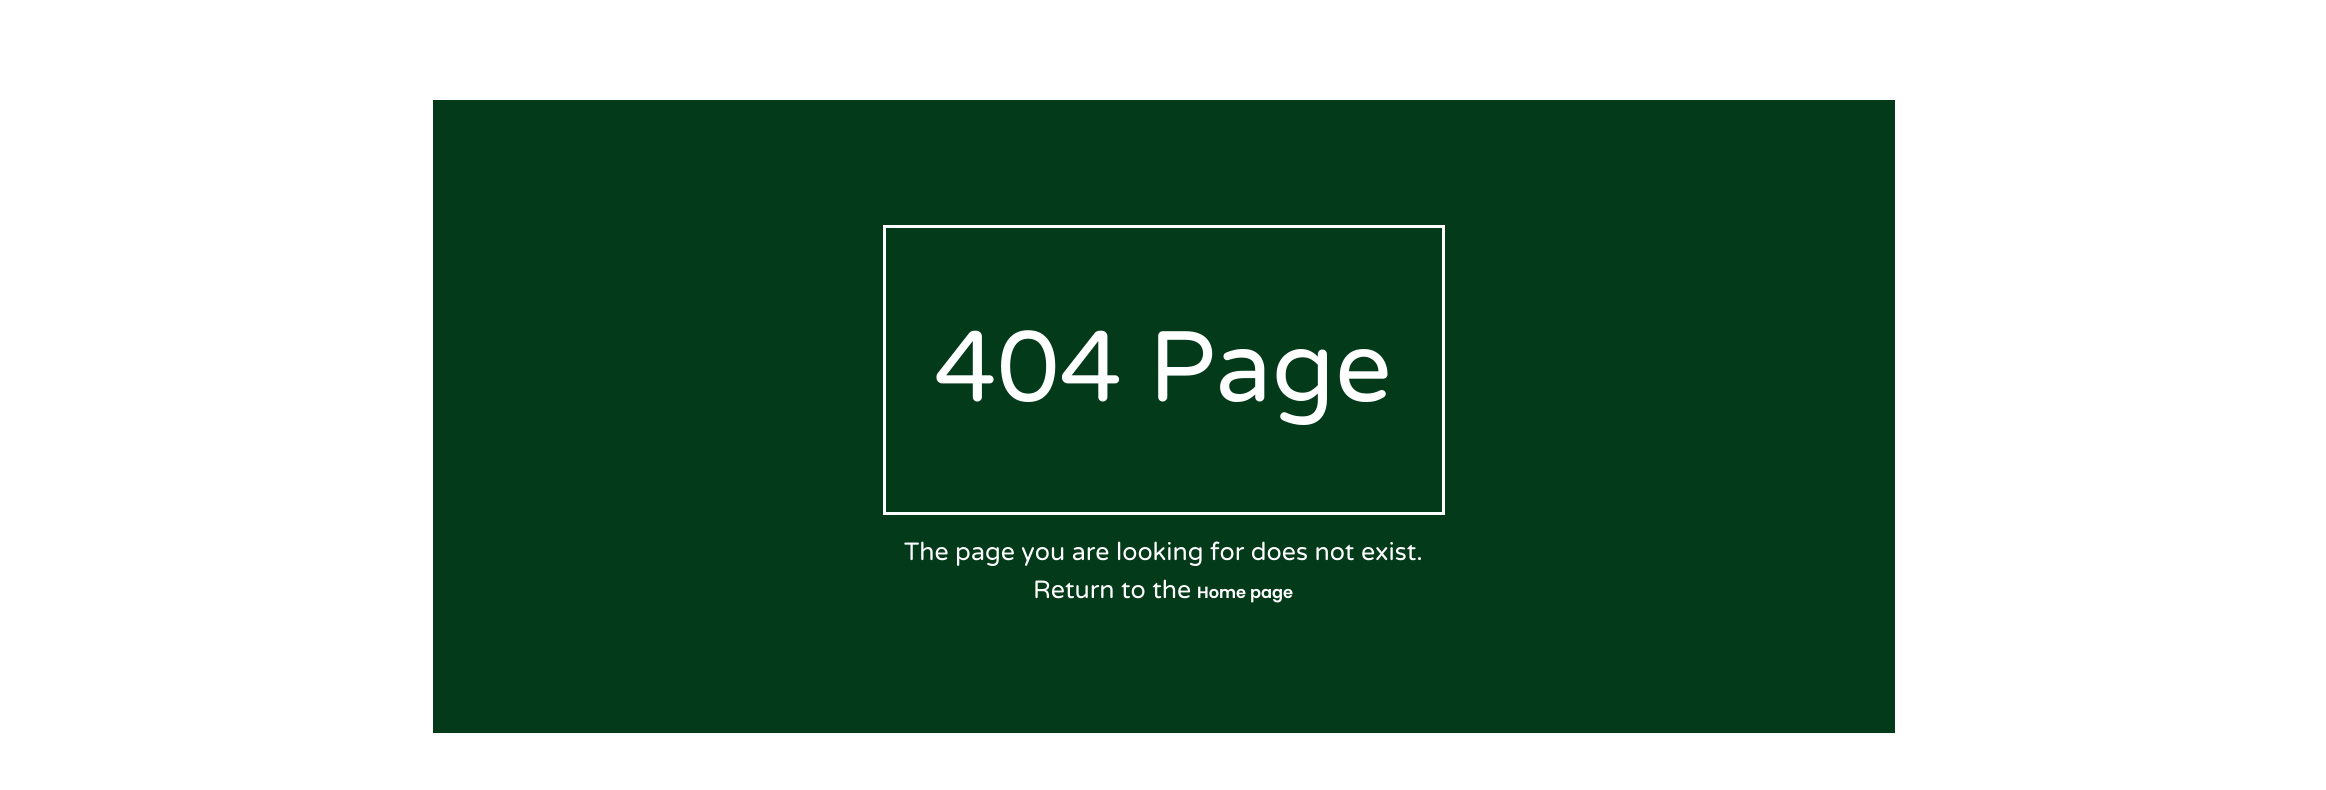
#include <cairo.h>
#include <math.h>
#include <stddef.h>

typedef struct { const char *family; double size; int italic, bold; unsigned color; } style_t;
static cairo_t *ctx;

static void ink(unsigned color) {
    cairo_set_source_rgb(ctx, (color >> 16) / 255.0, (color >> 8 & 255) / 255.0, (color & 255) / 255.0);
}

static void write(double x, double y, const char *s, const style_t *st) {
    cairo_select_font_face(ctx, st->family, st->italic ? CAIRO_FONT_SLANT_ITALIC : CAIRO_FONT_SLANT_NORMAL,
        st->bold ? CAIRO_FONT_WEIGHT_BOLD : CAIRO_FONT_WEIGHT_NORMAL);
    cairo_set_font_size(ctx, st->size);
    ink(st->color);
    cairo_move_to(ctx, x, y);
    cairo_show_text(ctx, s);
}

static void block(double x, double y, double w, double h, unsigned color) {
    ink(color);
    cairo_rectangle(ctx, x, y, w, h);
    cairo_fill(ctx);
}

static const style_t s1 = {"Varela Round", 100, 0, 0, 0xffffff};
static const style_t s2 = {"Varela Round", 25, 0, 0, 0xffffff};
static const style_t s3 = {"Poppins SemiBold", 16.25, 0, 0, 0xffffff};

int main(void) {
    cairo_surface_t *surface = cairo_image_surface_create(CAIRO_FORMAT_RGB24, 2326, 790);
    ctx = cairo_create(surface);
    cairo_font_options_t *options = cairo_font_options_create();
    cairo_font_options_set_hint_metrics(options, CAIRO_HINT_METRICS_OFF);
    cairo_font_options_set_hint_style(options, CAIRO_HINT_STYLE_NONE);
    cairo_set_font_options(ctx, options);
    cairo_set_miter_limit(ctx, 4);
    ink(0xffffff);
    cairo_paint(ctx);
    block(433, 100, 1462, 633, 0x033a1a);
    cairo_rectangle(ctx, 884.5, 226.5, 559, 287);
    ink(0xffffff);
    cairo_set_line_width(ctx, 3);
    cairo_stroke(ctx);
    write(934, 401, "404 Page", &s1);
    write(904, 560, "The page you are looking for does not exist.", &s2);
    write(1033, 598, "Return to the", &s2);
    write(1197, 598, "Home page", &s3);
    cairo_surface_write_to_png(surface, "screenshot.png");
    cairo_font_options_destroy(options);
    cairo_destroy(ctx);
    cairo_surface_destroy(surface);
    return 0;
}
